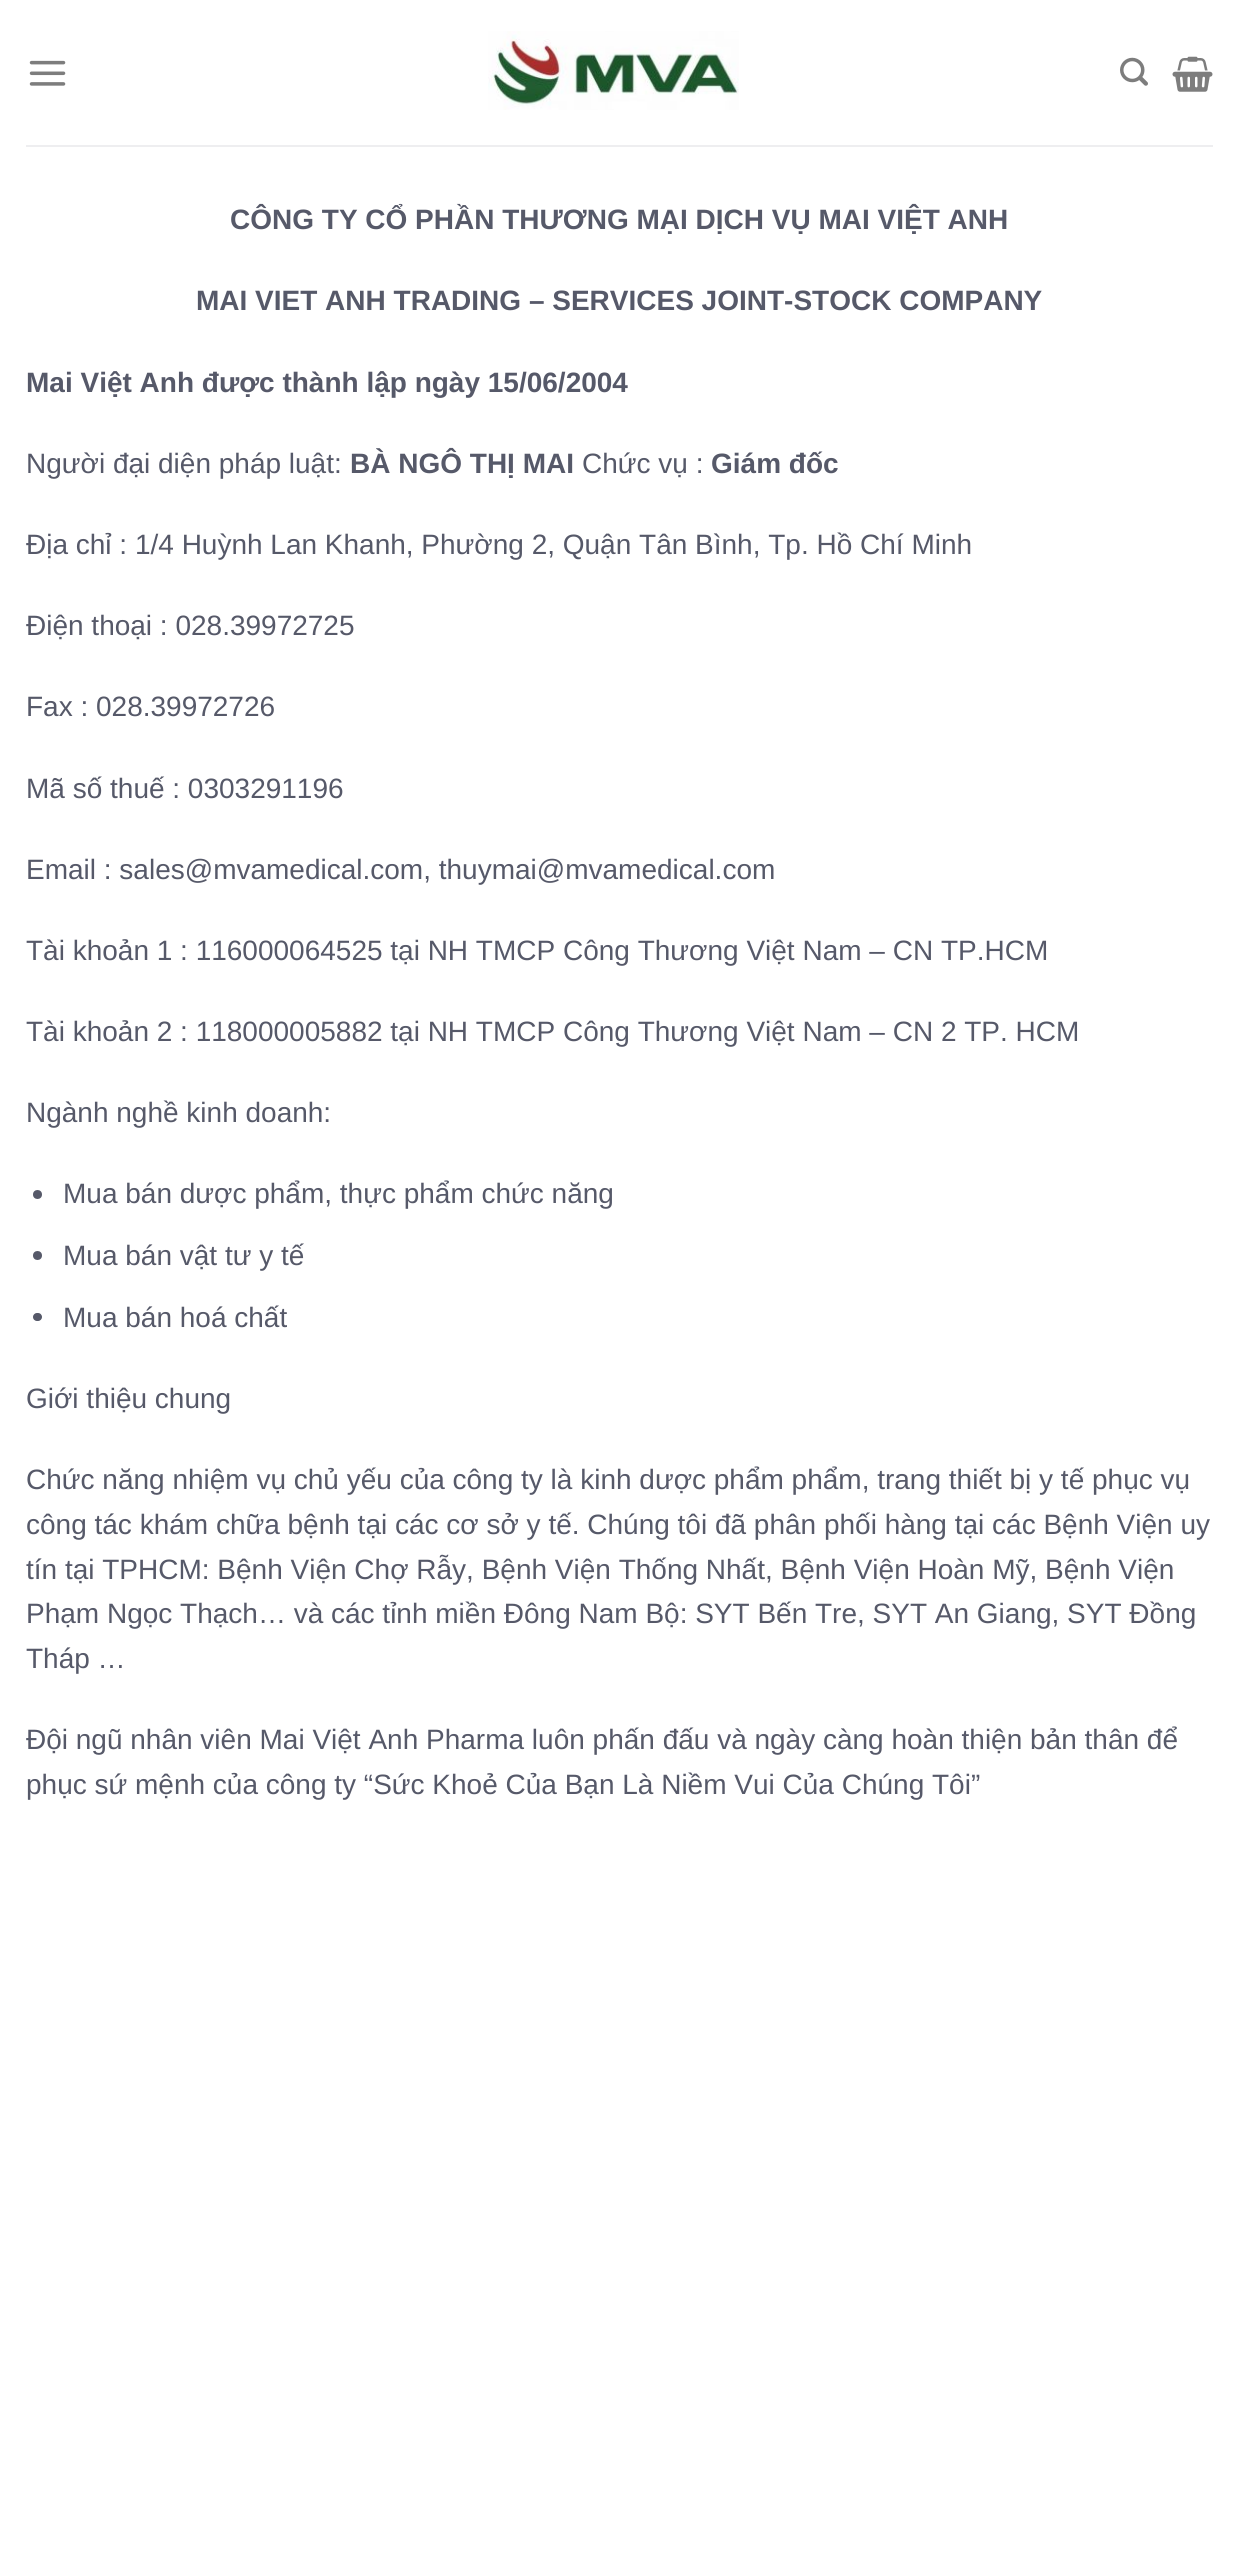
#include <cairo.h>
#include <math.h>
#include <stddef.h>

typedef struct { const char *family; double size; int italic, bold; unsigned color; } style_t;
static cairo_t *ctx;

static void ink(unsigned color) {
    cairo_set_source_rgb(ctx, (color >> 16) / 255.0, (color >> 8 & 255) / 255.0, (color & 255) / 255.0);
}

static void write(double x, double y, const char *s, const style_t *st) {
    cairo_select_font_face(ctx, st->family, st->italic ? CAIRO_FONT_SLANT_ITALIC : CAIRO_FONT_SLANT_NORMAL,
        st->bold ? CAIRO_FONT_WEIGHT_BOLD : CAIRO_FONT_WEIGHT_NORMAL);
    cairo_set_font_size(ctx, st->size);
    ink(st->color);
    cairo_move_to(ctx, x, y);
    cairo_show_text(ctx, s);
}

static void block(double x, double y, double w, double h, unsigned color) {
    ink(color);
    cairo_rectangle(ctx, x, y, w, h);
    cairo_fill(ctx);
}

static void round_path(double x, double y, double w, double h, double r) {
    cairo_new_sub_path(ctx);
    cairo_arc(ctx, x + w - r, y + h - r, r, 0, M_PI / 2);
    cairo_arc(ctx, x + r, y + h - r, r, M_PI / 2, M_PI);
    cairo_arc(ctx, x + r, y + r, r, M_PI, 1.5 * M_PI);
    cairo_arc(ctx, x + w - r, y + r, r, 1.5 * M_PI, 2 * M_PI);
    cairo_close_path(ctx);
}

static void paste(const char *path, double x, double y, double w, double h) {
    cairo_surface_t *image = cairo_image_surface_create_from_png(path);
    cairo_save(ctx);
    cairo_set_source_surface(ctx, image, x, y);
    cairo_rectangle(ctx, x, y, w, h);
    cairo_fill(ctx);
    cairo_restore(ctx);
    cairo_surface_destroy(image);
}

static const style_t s1 = {"Liberation Sans", 28, 0, 1, 0x565969};
static const style_t s2 = {"Liberation Sans", 28, 0, 0, 0x565969};

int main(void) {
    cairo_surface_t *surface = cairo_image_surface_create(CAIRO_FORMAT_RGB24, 1238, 2574);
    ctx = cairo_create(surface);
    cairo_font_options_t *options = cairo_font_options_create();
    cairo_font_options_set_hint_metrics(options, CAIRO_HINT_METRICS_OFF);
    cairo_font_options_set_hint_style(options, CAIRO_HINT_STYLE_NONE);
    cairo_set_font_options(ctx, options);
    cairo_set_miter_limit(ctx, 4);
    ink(0xffffff);
    cairo_paint(ctx);
    paste("pic1.png", 29, 60, 37, 26);
    paste("pic2.png", 488, 31, 251, 79);
    paste("pic3.png", 1120, 57, 28, 29);
    paste("pic4.png", 1172, 56, 41, 36);
    block(26, 145, 1187, 2, 0xeeeef0);
    write(230, 229, "CÔNG TY CỔ PHẦN THƯƠNG MẠI DỊCH VỤ MAI VIỆT ANH", &s1);
    write(196, 310, "MAI VIET ANH TRADING – SERVICES JOINT-STOCK COMPANY", &s1);
    write(26, 392, "Mai Việt Anh được thành lập ngày 15/06/2004", &s1);
    write(26, 473, "Người đại diện pháp luật:", &s2);
    write(350, 473, "BÀ NGÔ THỊ MAI", &s1);
    write(582, 473, "Chức vụ :", &s2);
    write(711, 473, "Giám đốc", &s1);
    write(26, 554, "Địa chỉ : 1/4 Huỳnh Lan Khanh, Phường 2, Quận Tân Bình, Tp. Hồ Chí Minh", &s2);
    write(26, 635, "Điện thoại : 028.39972725", &s2);
    write(26, 716, "Fax : 028.39972726", &s2);
    write(26, 798, "Mã số thuế : 0303291196", &s2);
    write(26, 879, "Email : sales@mvamedical.com, thuymai@mvamedical.com", &s2);
    write(26, 960, "Tài khoản 1 : 116000064525 tại NH TMCP Công Thương Việt Nam – CN TP.HCM", &s2);
    write(26, 1041, "Tài khoản 2 : 118000005882 tại NH TMCP Công Thương Việt Nam – CN 2 TP. HCM", &s2);
    write(26, 1122, "Ngành nghề kinh doanh:", &s2);
    cairo_new_path(ctx);
    cairo_arc(ctx, 37.5, 1194.5, 4.5, 0, 2 * M_PI);
    cairo_fill(ctx);
    write(63, 1203, "Mua bán dược phẩm, thực phẩm chức năng", &s2);
    cairo_new_path(ctx);
    cairo_arc(ctx, 37.5, 1255.5, 4.5, 0, 2 * M_PI);
    cairo_fill(ctx);
    write(63, 1265, "Mua bán vật tư y tế", &s2);
    round_path(33, 1313, 9, 8, 4);
    cairo_fill(ctx);
    write(63, 1327, "Mua bán hoá chất", &s2);
    write(26, 1408, "Giới thiệu chung", &s2);
    write(26, 1489, "Chức năng nhiệm vụ chủ yếu của công ty là kinh dược phẩm phẩm, trang thiết bị y tế phục vụ", &s2);
    write(26, 1534, "công tác khám chữa bệnh tại các cơ sở y tế. Chúng tôi đã phân phối hàng tại các Bệnh Viện uy", &s2);
    write(26, 1579, "tín tại TPHCM: Bệnh Viện Chợ Rẫy, Bệnh Viện Thống Nhất, Bệnh Viện Hoàn Mỹ, Bệnh Viện", &s2);
    write(26, 1623, "Phạm Ngọc Thạch… và các tỉnh miền Đông Nam Bộ: SYT Bến Tre, SYT An Giang, SYT Đồng", &s2);
    write(26, 1668, "Tháp …", &s2);
    write(26, 1749, "Đội ngũ nhân viên Mai Việt Anh Pharma luôn phấn đấu và ngày càng hoàn thiện bản thân để", &s2);
    write(26, 1794, "phục sứ mệnh của công ty “Sức Khoẻ Của Bạn Là Niềm Vui Của Chúng Tôi”", &s2);
    cairo_surface_write_to_png(surface, "screenshot.png");
    cairo_font_options_destroy(options);
    cairo_destroy(ctx);
    cairo_surface_destroy(surface);
    return 0;
}
